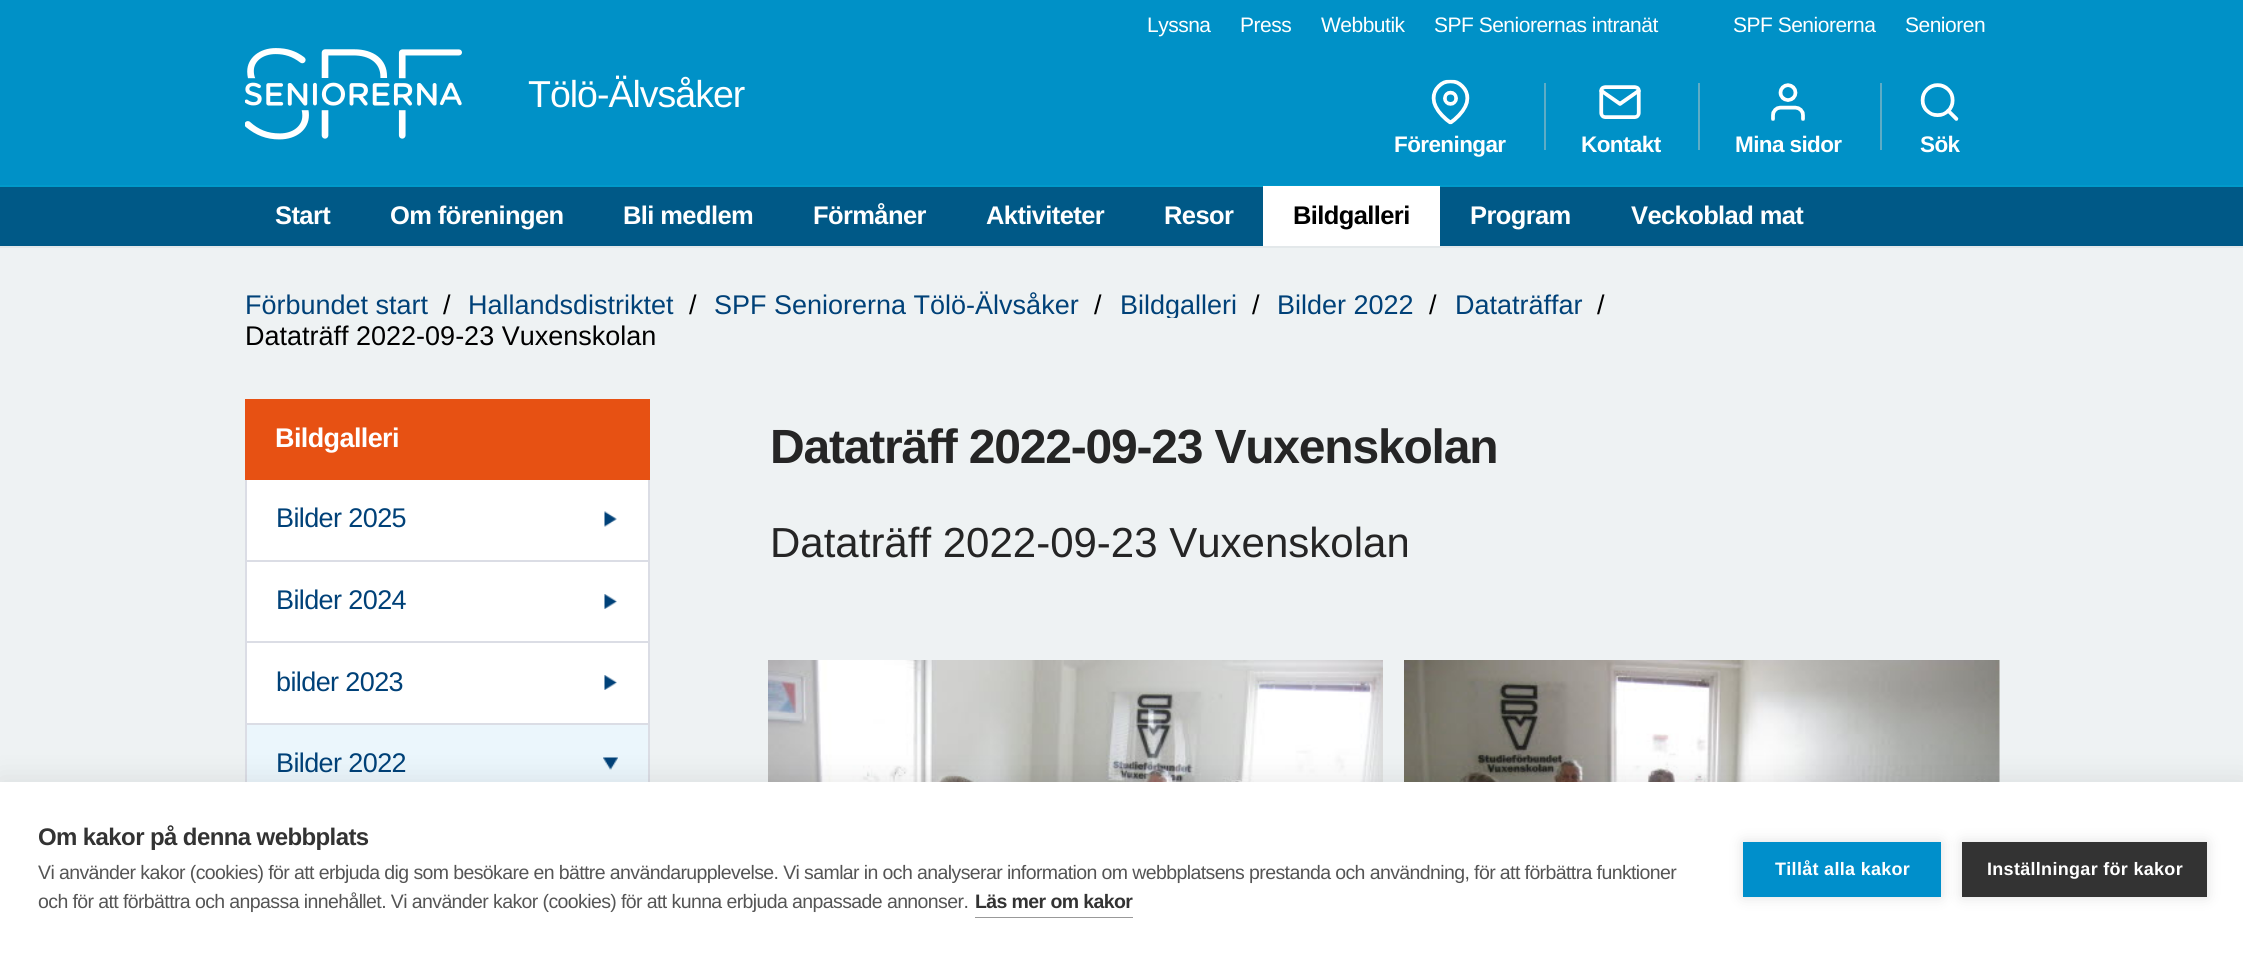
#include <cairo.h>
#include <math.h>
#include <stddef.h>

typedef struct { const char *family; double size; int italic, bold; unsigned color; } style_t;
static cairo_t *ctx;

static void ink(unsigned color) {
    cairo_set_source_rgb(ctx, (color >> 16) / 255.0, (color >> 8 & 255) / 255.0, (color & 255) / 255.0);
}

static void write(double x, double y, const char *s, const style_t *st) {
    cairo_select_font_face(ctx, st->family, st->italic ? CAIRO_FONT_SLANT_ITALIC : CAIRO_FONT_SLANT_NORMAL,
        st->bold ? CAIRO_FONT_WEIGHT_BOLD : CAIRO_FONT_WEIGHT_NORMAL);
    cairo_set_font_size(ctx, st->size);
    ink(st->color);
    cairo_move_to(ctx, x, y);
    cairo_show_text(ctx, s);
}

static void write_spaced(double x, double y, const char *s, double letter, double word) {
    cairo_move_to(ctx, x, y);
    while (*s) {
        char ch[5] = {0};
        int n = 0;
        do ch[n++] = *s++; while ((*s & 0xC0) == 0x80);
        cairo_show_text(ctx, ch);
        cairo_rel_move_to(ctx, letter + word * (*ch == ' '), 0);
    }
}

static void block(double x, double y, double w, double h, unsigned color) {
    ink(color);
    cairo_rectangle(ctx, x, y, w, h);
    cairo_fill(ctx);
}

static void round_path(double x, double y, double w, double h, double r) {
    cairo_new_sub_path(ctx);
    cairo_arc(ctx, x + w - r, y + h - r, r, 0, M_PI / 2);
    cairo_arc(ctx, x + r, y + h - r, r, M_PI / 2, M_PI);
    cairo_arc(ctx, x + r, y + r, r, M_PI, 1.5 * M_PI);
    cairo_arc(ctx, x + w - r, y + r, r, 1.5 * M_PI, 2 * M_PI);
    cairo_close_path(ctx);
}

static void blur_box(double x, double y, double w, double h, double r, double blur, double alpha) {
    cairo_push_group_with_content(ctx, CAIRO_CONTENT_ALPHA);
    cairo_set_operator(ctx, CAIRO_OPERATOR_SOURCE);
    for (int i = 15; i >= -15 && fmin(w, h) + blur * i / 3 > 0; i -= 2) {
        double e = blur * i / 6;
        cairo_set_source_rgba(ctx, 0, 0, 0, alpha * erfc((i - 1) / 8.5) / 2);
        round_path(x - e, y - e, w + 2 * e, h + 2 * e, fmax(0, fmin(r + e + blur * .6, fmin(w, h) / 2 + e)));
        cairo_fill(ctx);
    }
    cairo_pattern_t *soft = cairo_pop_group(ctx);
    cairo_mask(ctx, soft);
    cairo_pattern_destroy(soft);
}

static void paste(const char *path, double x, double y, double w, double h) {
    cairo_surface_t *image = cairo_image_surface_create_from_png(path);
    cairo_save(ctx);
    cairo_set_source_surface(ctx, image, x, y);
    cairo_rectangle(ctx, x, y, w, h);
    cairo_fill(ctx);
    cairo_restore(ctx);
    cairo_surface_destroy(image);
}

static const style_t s1 = {"Liberation Sans", 27, 0, 0, 0x004178};
static const style_t s2 = {"Liberation Sans", 27, 0, 0, 0x000000};
static const style_t s3 = {"Liberation Sans", 42, 0, 0, 0x252525};

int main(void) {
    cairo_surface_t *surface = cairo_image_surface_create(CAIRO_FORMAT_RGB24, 2243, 955);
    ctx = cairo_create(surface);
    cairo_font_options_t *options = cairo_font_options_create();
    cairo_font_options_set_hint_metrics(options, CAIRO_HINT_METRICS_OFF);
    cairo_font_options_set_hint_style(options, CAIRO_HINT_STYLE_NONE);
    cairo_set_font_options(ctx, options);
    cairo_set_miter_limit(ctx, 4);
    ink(0xeef2f3);
    cairo_paint(ctx);
    block(0, 0, 2243, 185, 0x0091c7);
    cairo_select_font_face(ctx, "Liberation Sans", CAIRO_FONT_SLANT_NORMAL, CAIRO_FONT_WEIGHT_NORMAL);
    cairo_set_font_size(ctx, 21);
    ink(0xffffff);
    write_spaced(1147, 32, "Lyssna", -0.5, 0);
    write_spaced(1240, 32, "Press", -0.5, 0);
    write_spaced(1321, 32, "Webbutik", -0.5, 0);
    write_spaced(1434, 32, "SPF Seniorernas intranät", -0.5, 0);
    write_spaced(1733, 32, "SPF Seniorerna", -0.5, 0);
    write_spaced(1905, 32, "Senioren", -0.5, 0);
    paste("pic1.png", 245, 48, 217, 92);
    cairo_set_font_size(ctx, 37.5);
    write_spaced(528, 107, "Tölö-Älvsåker", -1, 0);
    paste("pic2.png", 1431, 79, 39, 46);
    cairo_select_font_face(ctx, "Liberation Sans", CAIRO_FONT_SLANT_NORMAL, CAIRO_FONT_WEIGHT_BOLD);
    cairo_set_font_size(ctx, 22.5);
    write_spaced(1394, 152, "Föreningar", -0.6, 0);
    block(1544, 83, 2, 67, 0x5eacc6);
    paste("pic3.png", 1599, 85, 42, 34);
    ink(0xffffff);
    write_spaced(1581, 152, "Kontakt", -0.6, 0);
    block(1698, 83, 2, 67, 0x5eacc6);
    paste("pic4.png", 1771, 83, 34, 38);
    ink(0xffffff);
    write_spaced(1735, 152, "Mina sidor", -0.6, 0);
    block(1880, 83, 2, 67, 0x5eacc6);
    paste("pic5.png", 1920, 83, 39, 38);
    ink(0xffffff);
    write_spaced(1920, 152, "Sök", -0.6, 0);
    block(0, 246, 2243, 2, 0xe3e8ea);
    block(0, 187, 2243, 59, 0x005987);
    block(0, 185, 2243, 2, 0x009acb);
    cairo_set_font_size(ctx, 25.5);
    ink(0xffffff);
    write_spaced(275, 224, "Start", -0.6, 0);
    write_spaced(390, 224, "Om föreningen", -0.6, 0);
    write_spaced(623, 224, "Bli medlem", -0.6, 0);
    write_spaced(813, 224, "Förmåner", -0.6, 0);
    write_spaced(986, 224, "Aktiviteter", -0.6, 0);
    write_spaced(1164, 224, "Resor", -0.6, 0);
    block(1263, 186, 177, 60, 0xffffff);
    ink(0x000000);
    write_spaced(1293, 224, "Bildgalleri", -0.6, 0);
    ink(0xffffff);
    write_spaced(1470, 224, "Program", -0.6, 0);
    write_spaced(1631, 224, "Veckoblad mat", -0.6, 0);
    write(245, 314, "Förbundet start", &s1);
    write(443, 314, "/", &s2);
    write(468, 314, "Hallandsdistriktet", &s1);
    write(689, 314, "/", &s2);
    write(714, 314, "SPF Seniorerna Tölö-Älvsåker", &s1);
    write(1094, 314, "/", &s2);
    cairo_save(ctx);
    cairo_rectangle(ctx, 1119, 291, 152, 27);
    cairo_clip(ctx);
    write(1120, 314, "Bildgalleri", &s1);
    cairo_restore(ctx);
    write(1252, 314, "/", &s2);
    write(1277, 314, "Bilder 2022", &s1);
    write(1429, 314, "/", &s2);
    write(1455, 314, "Dataträffar", &s1);
    write(1597, 314, "/", &s2);
    write(245, 345, "Dataträff 2022-09-23 Vuxenskolan", &s2);
    block(245, 399, 405, 81, 0xe75113);
    cairo_select_font_face(ctx, "Liberation Sans", CAIRO_FONT_SLANT_NORMAL, CAIRO_FONT_WEIGHT_BOLD);
    ink(0xffffff);
    write_spaced(275, 447, "Bildgalleri", -0.6, 0);
    block(247, 480, 401, 80, 0xffffff);
    block(648, 480, 2, 81, 0xdbdde5);
    block(245, 560, 405, 2, 0xdbdde5);
    block(245, 480, 2, 81, 0xdbdde5);
    cairo_select_font_face(ctx, "Liberation Sans", CAIRO_FONT_SLANT_NORMAL, CAIRO_FONT_WEIGHT_NORMAL);
    ink(0x004178);
    write_spaced(276, 527, "Bilder 2025", -0.6, 0);
    paste("pic6.png", 604, 511, 13, 16);
    block(247, 562, 401, 79, 0xffffff);
    block(648, 561, 2, 81, 0xdbdde5);
    block(245, 641, 405, 2, 0xdbdde5);
    block(245, 561, 2, 81, 0xdbdde5);
    ink(0x004178);
    write_spaced(276, 609, "Bilder 2024", -0.6, 0);
    paste("pic7.png", 604, 594, 13, 15);
    block(247, 643, 401, 80, 0xffffff);
    block(648, 642, 2, 140, 0xdbdde5);
    block(245, 723, 405, 2, 0xdbdde5);
    block(245, 642, 2, 140, 0xdbdde5);
    ink(0x004178);
    write_spaced(276, 691, "bilder 2023", -0.6, 0);
    paste("pic7.png", 604, 675, 13, 15);
    block(247, 725, 401, 57, 0xebf6fc);
    ink(0x004178);
    write_spaced(276, 772, "Bilder 2022", -0.6, 0);
    paste("pic8.png", 603, 757, 15, 13);
    cairo_select_font_face(ctx, "Liberation Sans", CAIRO_FONT_SLANT_NORMAL, CAIRO_FONT_WEIGHT_BOLD);
    cairo_set_font_size(ctx, 48);
    ink(0x252525);
    write_spaced(770, 463, "Dataträff 2022-09-23 Vuxenskolan", -1.2, 0);
    write(770, 557, "Dataträff 2022-09-23 Vuxenskolan", &s3);
    paste("pic9.png", 768, 660, 615, 122);
    paste("pic10.png", 1404, 660, 596, 122);
    ink(0x000000);
    blur_box(0, 782, 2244, 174, 0, 15, 0.1);
    block(0, 782, 2243, 173, 0xffffff);
    cairo_select_font_face(ctx, "Liberation Sans", CAIRO_FONT_SLANT_NORMAL, CAIRO_FONT_WEIGHT_BOLD);
    cairo_set_font_size(ctx, 24);
    ink(0x333333);
    write_spaced(38, 845, "Om kakor på denna webbplats", -0.6, 0);
    cairo_select_font_face(ctx, "Liberation Sans", CAIRO_FONT_SLANT_NORMAL, CAIRO_FONT_WEIGHT_NORMAL);
    cairo_set_font_size(ctx, 19.5);
    ink(0x555555);
    write_spaced(38, 879, "Vi använder kakor (cookies) för att erbjuda dig som besökare en bättre användarupplevelse. Vi samlar in och analyserar information om webbplatsens prestanda och användning, för att förbättra funktioner", -0.6, 0);
    write_spaced(38, 908, "och för att förbättra och anpassa innehållet. Vi använder kakor (cookies) för att kunna erbjuda anpassade annonser.", -0.6, 0);
    block(975, 917, 158, 1, 0x999999);
    cairo_select_font_face(ctx, "Liberation Sans", CAIRO_FONT_SLANT_NORMAL, CAIRO_FONT_WEIGHT_BOLD);
    ink(0x333333);
    write_spaced(975, 908, "Läs mer om kakor", -0.6, 0);
    ink(0x000000);
    blur_box(1743, 842, 198, 55, 0, 7.5, 0.12);
    block(1743, 842, 198, 55, 0x008fcb);
    cairo_set_font_size(ctx, 18);
    ink(0xffffff);
    write_spaced(1775, 875, "Tillåt alla kakor", 0.3, 0);
    ink(0x000000);
    blur_box(1962, 842, 245, 55, 0, 7.5, 0.12);
    block(1962, 842, 245, 55, 0x333333);
    ink(0xffffff);
    write_spaced(1987, 875, "Inställningar för kakor", 0.3, 0);
    cairo_surface_write_to_png(surface, "screenshot.png");
    cairo_font_options_destroy(options);
    cairo_destroy(ctx);
    cairo_surface_destroy(surface);
    return 0;
}
